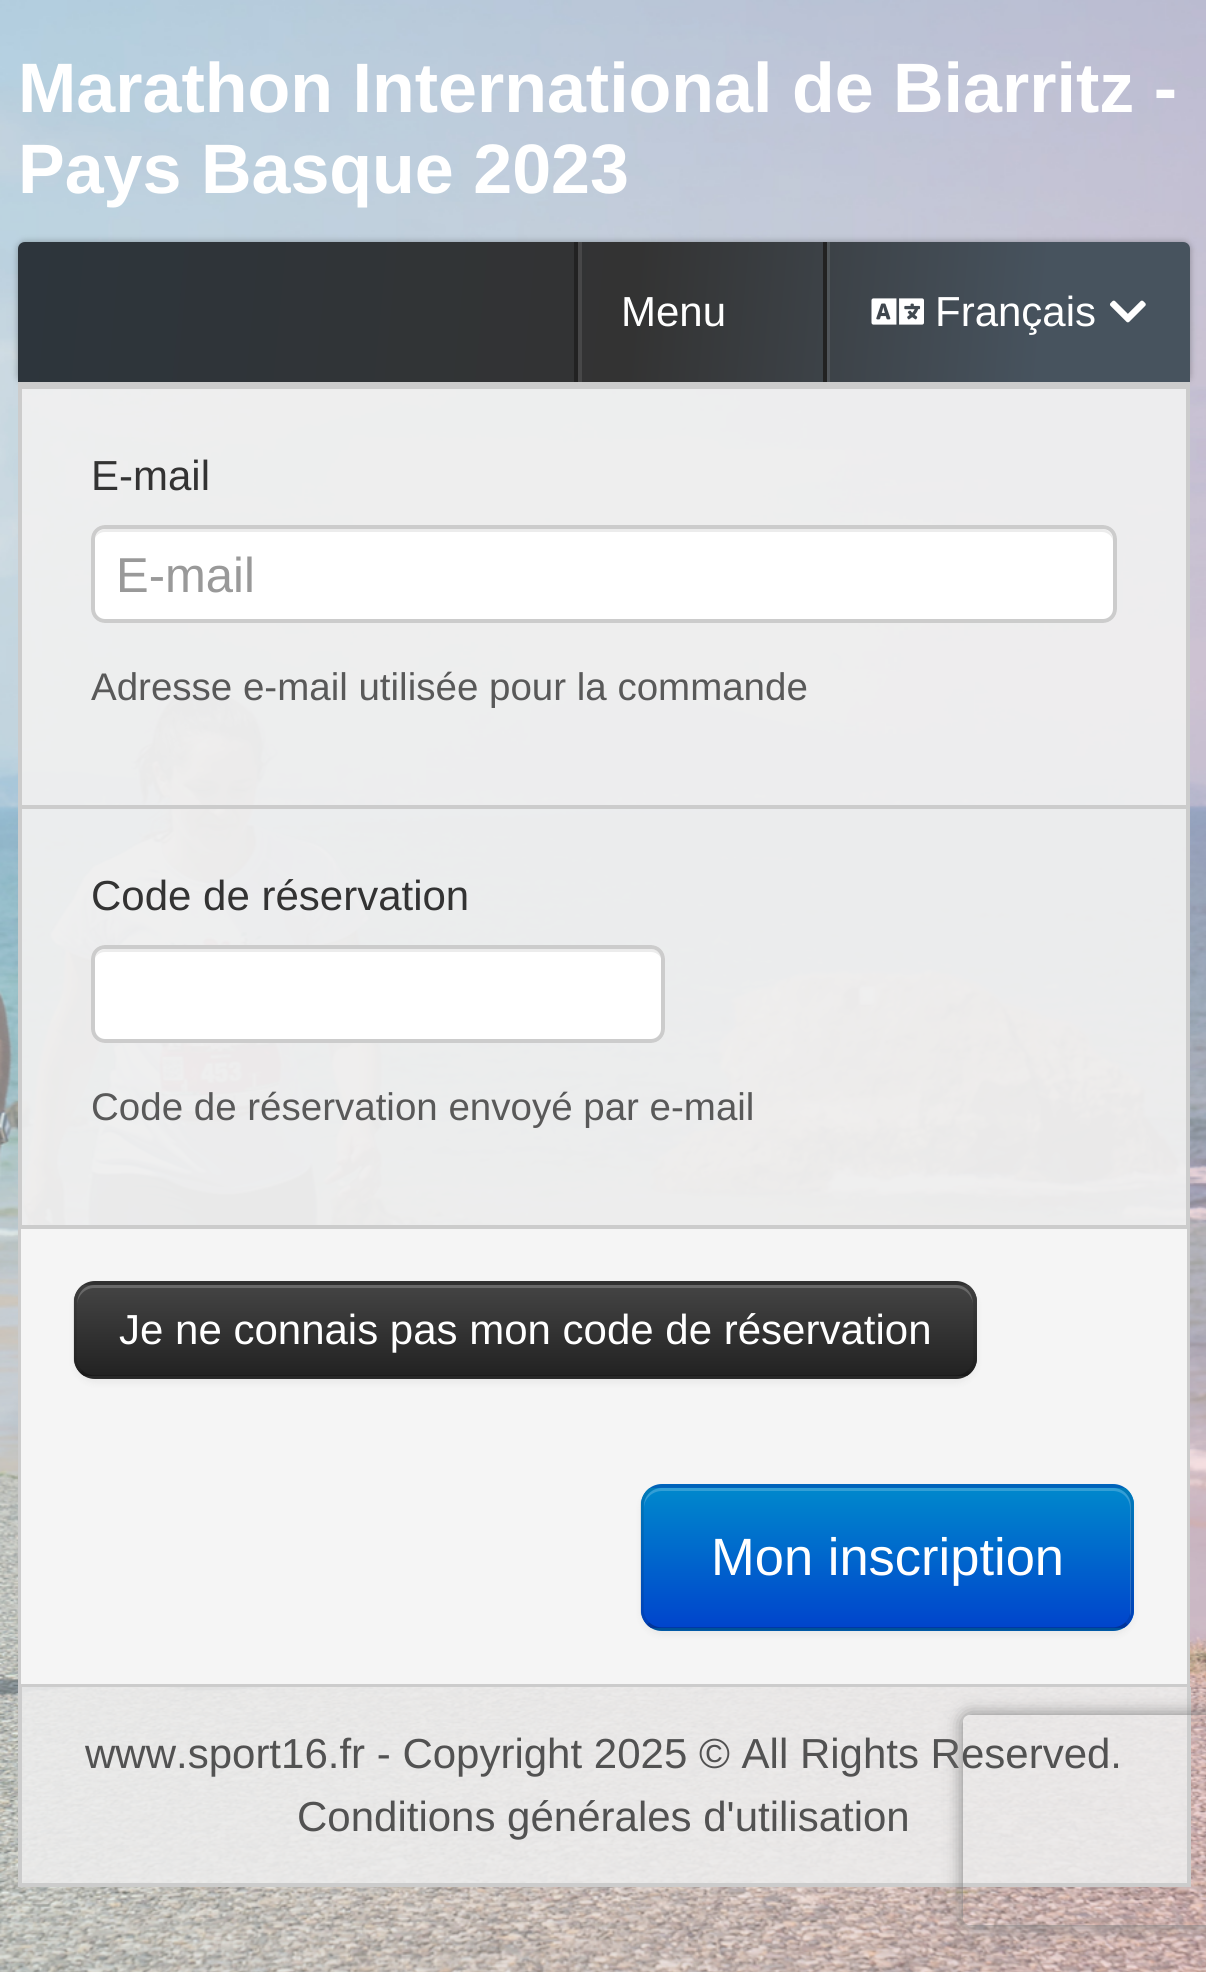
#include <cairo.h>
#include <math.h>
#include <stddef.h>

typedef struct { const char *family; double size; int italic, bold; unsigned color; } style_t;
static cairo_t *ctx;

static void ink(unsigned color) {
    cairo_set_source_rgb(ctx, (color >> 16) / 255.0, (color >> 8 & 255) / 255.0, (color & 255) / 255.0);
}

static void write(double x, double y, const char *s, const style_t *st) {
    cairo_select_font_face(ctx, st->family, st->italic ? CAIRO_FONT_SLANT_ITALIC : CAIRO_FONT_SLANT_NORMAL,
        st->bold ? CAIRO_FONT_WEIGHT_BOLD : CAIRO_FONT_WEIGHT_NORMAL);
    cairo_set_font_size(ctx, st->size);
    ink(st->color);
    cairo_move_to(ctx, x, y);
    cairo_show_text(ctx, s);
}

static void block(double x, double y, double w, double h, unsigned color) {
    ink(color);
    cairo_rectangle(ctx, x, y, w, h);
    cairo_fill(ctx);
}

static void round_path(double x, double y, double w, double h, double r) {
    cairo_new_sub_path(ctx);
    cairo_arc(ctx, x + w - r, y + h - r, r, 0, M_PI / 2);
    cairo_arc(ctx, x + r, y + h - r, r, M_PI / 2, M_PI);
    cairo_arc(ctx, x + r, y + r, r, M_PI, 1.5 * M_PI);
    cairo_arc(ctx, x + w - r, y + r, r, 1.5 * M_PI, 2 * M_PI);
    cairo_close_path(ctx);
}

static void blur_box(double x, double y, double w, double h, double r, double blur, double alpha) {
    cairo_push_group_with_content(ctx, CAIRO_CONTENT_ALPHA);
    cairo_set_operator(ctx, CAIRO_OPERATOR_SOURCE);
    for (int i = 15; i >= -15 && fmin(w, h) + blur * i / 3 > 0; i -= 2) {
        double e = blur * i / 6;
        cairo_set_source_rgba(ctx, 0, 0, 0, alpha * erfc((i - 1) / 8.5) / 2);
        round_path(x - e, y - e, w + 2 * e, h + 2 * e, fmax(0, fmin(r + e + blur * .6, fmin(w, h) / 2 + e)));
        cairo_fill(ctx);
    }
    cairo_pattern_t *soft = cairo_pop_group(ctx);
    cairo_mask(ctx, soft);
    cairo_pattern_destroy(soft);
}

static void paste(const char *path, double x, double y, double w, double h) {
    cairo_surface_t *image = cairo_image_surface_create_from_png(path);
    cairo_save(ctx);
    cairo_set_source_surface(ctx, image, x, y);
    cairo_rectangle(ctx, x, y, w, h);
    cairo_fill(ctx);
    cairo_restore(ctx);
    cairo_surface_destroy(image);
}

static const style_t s1 = {"Liberation Sans", 70, 0, 1, 0xffffff};
static const style_t s2 = {"Liberation Sans", 42, 0, 0, 0xffffff};
static const style_t s3 = {"Liberation Sans", 42, 0, 0, 0x333333};
static const style_t s4 = {"Liberation Sans", 49, 0, 0, 0x999999};
static const style_t s5 = {"Liberation Sans", 38.5, 0, 0, 0x595959};
static const style_t s6 = {"Liberation Sans", 52.5, 0, 0, 0xffffff};
static const style_t s7 = {"Liberation Sans", 42, 0, 0, 0x525252};

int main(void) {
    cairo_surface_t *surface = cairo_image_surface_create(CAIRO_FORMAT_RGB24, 1206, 1972);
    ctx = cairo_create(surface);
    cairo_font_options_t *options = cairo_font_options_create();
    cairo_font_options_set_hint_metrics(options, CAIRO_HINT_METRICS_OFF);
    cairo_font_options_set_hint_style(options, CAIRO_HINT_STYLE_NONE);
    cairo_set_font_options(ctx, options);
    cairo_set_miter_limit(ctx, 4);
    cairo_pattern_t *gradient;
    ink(0xffffff);
    cairo_paint(ctx);
    paste("pic1.png", 0, 0, 1206, 1972);
    write(18, 112, "Marathon International de Biarritz -", &s1);
    write(18, 193, "Pays Basque 2023", &s1);
    ink(0x000000);
    blur_box(18, 242, 1172, 140, 7, 3.5, 0.3);
    gradient = cairo_pattern_create_linear(18, 285, 1038, 382);
    cairo_pattern_add_color_stop_rgba(gradient, 0, 0.176, 0.208, 0.235, 1);
    cairo_pattern_add_color_stop_rgba(gradient, 0.6, 0.2, 0.2, 0.2, 1);
    cairo_pattern_add_color_stop_rgba(gradient, 1, 0.278, 0.325, 0.369, 1);
    cairo_set_source(ctx, gradient);
    cairo_pattern_destroy(gradient);
    cairo_new_path(ctx);
    cairo_move_to(ctx, 25, 242);
    cairo_line_to(ctx, 1183, 242);
    cairo_curve_to(ctx, 1187, 242, 1190, 245, 1190, 249);
    cairo_line_to(ctx, 1190, 382);
    cairo_line_to(ctx, 18, 382);
    cairo_line_to(ctx, 18, 249);
    cairo_curve_to(ctx, 18, 245, 21, 242, 25, 242);
    cairo_close_path(ctx);
    cairo_fill(ctx);
    block(578, 242, 4, 140, 0x474748);
    block(574, 242, 4, 140, 0x222222);
    write(621, 326, "Menu", &s2);
    cairo_set_source_rgba(ctx, 1, 1, 1, 0.1);
    cairo_rectangle(ctx, 827, 242, 3, 140);
    cairo_fill(ctx);
    block(823, 242, 4, 140, 0x222222);
    paste("pic2.png", 871, 298, 53, 27);
    write(935, 326, "Français", &s2);
    paste("pic3.png", 1110, 300, 36, 23);
    cairo_set_source_rgba(ctx, 0.941, 0.941, 0.941, 0.95);
    cairo_rectangle(ctx, 22, 389, 1164, 836);
    cairo_fill(ctx);
    cairo_rectangle(ctx, 20, 384, 1168, 1301);
    ink(0xcccccc);
    cairo_set_line_width(ctx, 4);
    cairo_stroke(ctx);
    block(21, 386, 1166, 3, 0xcccccc);
    write(91, 490, "E-mail", &s3);
    ink(0xffffff);
    round_path(91, 525, 1026, 98, 14);
    cairo_fill(ctx);
    ink(0xececec);
    cairo_new_path(ctx);
    cairo_move_to(ctx, 105, 532);
    cairo_line_to(ctx, 1102, 532);
    cairo_curve_to(ctx, 1108, 532, 1113, 537, 1113, 542);
    cairo_line_to(ctx, 1113, 540);
    cairo_curve_to(ctx, 1113, 534, 1108, 529, 1102, 529);
    cairo_line_to(ctx, 106, 529);
    cairo_curve_to(ctx, 101, 529, 96, 533, 95, 538);
    cairo_curve_to(ctx, 97, 534, 101, 532, 105, 532);
    cairo_close_path(ctx);
    cairo_fill(ctx);
    round_path(93, 527, 1022, 94, 12);
    ink(0xcccccc);
    cairo_stroke(ctx);
    write(116, 592, "E-mail", &s4);
    write(91, 700, "Adresse e-mail utilisée pour la commande", &s5);
    block(21, 805, 1166, 4, 0xcccccc);
    write(91, 910, "Code de réservation", &s3);
    ink(0xffffff);
    round_path(91, 945, 574, 98, 14);
    cairo_fill(ctx);
    ink(0xececec);
    cairo_new_path(ctx);
    cairo_move_to(ctx, 105, 952);
    cairo_line_to(ctx, 651, 952);
    cairo_curve_to(ctx, 657, 952, 662, 957, 662, 962);
    cairo_line_to(ctx, 662, 960);
    cairo_curve_to(ctx, 662, 954, 657, 949, 651, 949);
    cairo_line_to(ctx, 106, 949);
    cairo_curve_to(ctx, 101, 949, 96, 953, 95, 958);
    cairo_curve_to(ctx, 97, 954, 101, 952, 105, 952);
    cairo_close_path(ctx);
    cairo_fill(ctx);
    round_path(93, 947, 570, 94, 12);
    ink(0xcccccc);
    cairo_stroke(ctx);
    write(91, 1120, "Code de réservation envoyé par e-mail", &s5);
    block(21, 1229, 1166, 455, 0xf5f5f5);
    block(21, 1225, 1166, 4, 0xcccccc);
    ink(0x000000);
    blur_box(74, 1285, 903, 98, 21, 3.5, 0.05);
    ink(0x363636);
    round_path(74, 1281, 903, 98, 21);
    cairo_fill(ctx);
    cairo_save(ctx);
    round_path(74, 1281, 903, 98, 21);
    cairo_clip(ctx);
    gradient = cairo_pattern_create_linear(525, 1285, 525, 1376);
    cairo_pattern_add_color_stop_rgba(gradient, 0, 0.267, 0.267, 0.267, 1);
    cairo_pattern_add_color_stop_rgba(gradient, 1, 0.133, 0.133, 0.133, 1);
    cairo_set_source(ctx, gradient);
    cairo_pattern_destroy(gradient);
    cairo_rectangle(ctx, 74, 1285, 903, 91);
    cairo_fill(ctx);
    cairo_restore(ctx);
    cairo_set_source_rgba(ctx, 1, 1, 1, 0.2);
    cairo_new_path(ctx);
    cairo_move_to(ctx, 94, 1288);
    cairo_line_to(ctx, 956, 1288);
    cairo_curve_to(ctx, 965, 1288, 973, 1296, 973, 1306);
    cairo_curve_to(ctx, 973, 1295, 968, 1285, 955, 1285);
    cairo_line_to(ctx, 95, 1285);
    cairo_curve_to(ctx, 82, 1285, 77, 1295, 77, 1306);
    cairo_curve_to(ctx, 77, 1296, 85, 1288, 94, 1288);
    cairo_close_path(ctx);
    cairo_fill(ctx);
    cairo_new_path(ctx);
    cairo_move_to(ctx, 969, 1371.5);
    cairo_curve_to(ctx, 965.5, 1375, 960.5, 1377, 955.5, 1377);
    cairo_line_to(ctx, 94.5, 1377);
    cairo_curve_to(ctx, 89.5, 1377, 84.5, 1375, 81, 1371.5);
    cairo_set_source_rgba(ctx, 0, 0, 0, 0.25);
    cairo_set_line_width(ctx, 3.5);
    cairo_stroke(ctx);
    cairo_new_path(ctx);
    cairo_move_to(ctx, 81, 1371.5);
    cairo_curve_to(ctx, 77.5, 1368, 75, 1363, 75, 1358);
    cairo_line_to(ctx, 75, 1302);
    cairo_curve_to(ctx, 75, 1297, 77.5, 1292, 81, 1288.5);
    cairo_curve_to(ctx, 84.5, 1285, 89.5, 1283, 94.5, 1283);
    cairo_line_to(ctx, 955.5, 1283);
    cairo_curve_to(ctx, 960.5, 1283, 965.5, 1285, 969, 1288.5);
    cairo_curve_to(ctx, 972.5, 1292, 975, 1297, 975, 1302);
    cairo_line_to(ctx, 975, 1358);
    cairo_curve_to(ctx, 975, 1363, 972.5, 1368, 969, 1371.5);
    cairo_set_source_rgba(ctx, 0, 0, 0, 0.1);
    cairo_stroke(ctx);
    write(119, 1344, "Je ne connais pas mon code de réservation", &s2);
    ink(0x000000);
    blur_box(641, 1488, 493, 147, 21, 3.5, 0.05);
    ink(0x006dcc);
    round_path(641, 1484, 493, 147, 21);
    cairo_fill(ctx);
    cairo_save(ctx);
    round_path(641, 1484, 493, 147, 21);
    cairo_clip(ctx);
    gradient = cairo_pattern_create_linear(887, 1488, 887, 1628);
    cairo_pattern_add_color_stop_rgba(gradient, 0, 0, 0.533, 0.8, 1);
    cairo_pattern_add_color_stop_rgba(gradient, 1, 0, 0.267, 0.8, 1);
    cairo_set_source(ctx, gradient);
    cairo_pattern_destroy(gradient);
    cairo_rectangle(ctx, 641, 1488, 493, 140);
    cairo_fill(ctx);
    cairo_restore(ctx);
    cairo_set_source_rgba(ctx, 1, 1, 1, 0.2);
    cairo_new_path(ctx);
    cairo_move_to(ctx, 662, 1491);
    cairo_line_to(ctx, 1113, 1491);
    cairo_curve_to(ctx, 1123, 1491, 1130, 1499, 1130, 1508);
    cairo_line_to(ctx, 1130, 1616);
    cairo_curve_to(ctx, 1131, 1614, 1131, 1612, 1131, 1610);
    cairo_line_to(ctx, 1131, 1506);
    cairo_curve_to(ctx, 1131, 1496, 1123, 1488, 1113, 1488);
    cairo_line_to(ctx, 662, 1488);
    cairo_curve_to(ctx, 652, 1488, 644, 1496, 644, 1506);
    cairo_line_to(ctx, 644, 1508);
    cairo_curve_to(ctx, 644, 1499, 652, 1491, 662, 1491);
    cairo_close_path(ctx);
    cairo_fill(ctx);
    cairo_new_path(ctx);
    cairo_move_to(ctx, 1126.5, 1623.5);
    cairo_curve_to(ctx, 1123, 1627, 1118, 1629, 1113, 1629);
    cairo_line_to(ctx, 661.5, 1629);
    cairo_curve_to(ctx, 656.5, 1629, 651.5, 1627, 648, 1623.5);
    cairo_set_source_rgba(ctx, 0, 0, 0, 0.25);
    cairo_stroke(ctx);
    cairo_new_path(ctx);
    cairo_move_to(ctx, 648, 1623.5);
    cairo_curve_to(ctx, 644.5, 1620, 642, 1615, 642, 1610);
    cairo_line_to(ctx, 642, 1505);
    cairo_curve_to(ctx, 642, 1500, 644.5, 1495, 648, 1491.5);
    cairo_curve_to(ctx, 651.5, 1488, 656.5, 1486, 661.5, 1486);
    cairo_line_to(ctx, 1113, 1486);
    cairo_curve_to(ctx, 1118, 1486, 1123, 1488, 1126.5, 1491.5);
    cairo_curve_to(ctx, 1130, 1495, 1132, 1500, 1132, 1505);
    cairo_line_to(ctx, 1132, 1610);
    cairo_curve_to(ctx, 1132, 1615, 1130, 1620, 1126.5, 1623.5);
    cairo_set_source_rgba(ctx, 0, 0, 0, 0.1);
    cairo_stroke(ctx);
    write(711, 1575, "Mon inscription", &s6);
    cairo_set_source_rgba(ctx, 0.925, 0.925, 0.925, 0.9);
    cairo_rectangle(ctx, 22, 1687, 1165, 196);
    cairo_fill(ctx);
    block(1187, 1687, 4, 200, 0xcccccc);
    block(18, 1883, 1172, 4, 0xcccccc);
    block(18, 1687, 4, 200, 0xcccccc);
    write(85, 1768, "www.sport16.fr - Copyright 2025 © All Rights Reserved.", &s7);
    write(297, 1831, "Conditions générales d'utilisation", &s7);
    cairo_save(ctx);
    cairo_set_fill_rule(ctx, CAIRO_FILL_RULE_EVEN_ODD);
    cairo_new_path(ctx);
    cairo_move_to(ctx, 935, 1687);
    cairo_line_to(ctx, 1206, 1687);
    cairo_line_to(ctx, 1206, 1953);
    cairo_line_to(ctx, 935, 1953);
    cairo_close_path(ctx);
    cairo_move_to(ctx, 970, 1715);
    cairo_line_to(ctx, 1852, 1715);
    cairo_curve_to(ctx, 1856, 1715, 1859, 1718, 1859, 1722);
    cairo_line_to(ctx, 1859, 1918);
    cairo_curve_to(ctx, 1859, 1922, 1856, 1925, 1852, 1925);
    cairo_line_to(ctx, 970, 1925);
    cairo_curve_to(ctx, 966, 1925, 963, 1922, 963, 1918);
    cairo_line_to(ctx, 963, 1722);
    cairo_curve_to(ctx, 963, 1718, 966, 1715, 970, 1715);
    cairo_close_path(ctx);
    cairo_clip(ctx);
    ink(0x808080);
    blur_box(963, 1715, 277, 210, 7, 9, 1);
    cairo_restore(ctx);
    cairo_surface_write_to_png(surface, "screenshot.png");
    cairo_font_options_destroy(options);
    cairo_destroy(ctx);
    cairo_surface_destroy(surface);
    return 0;
}
